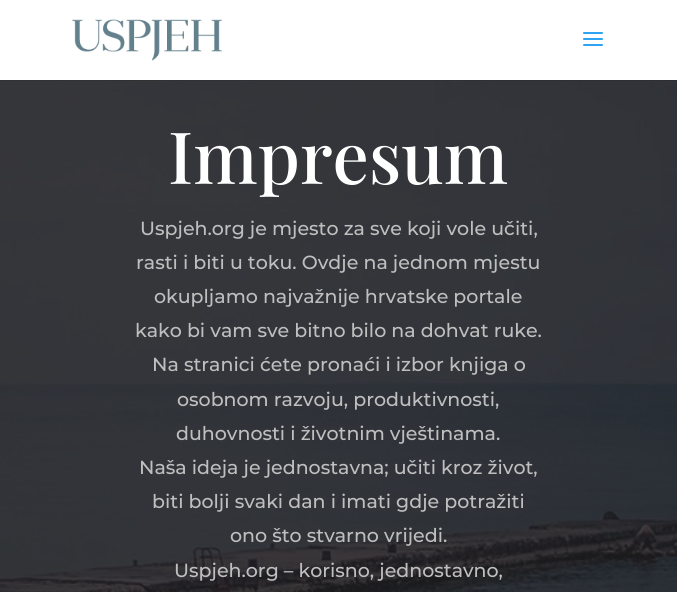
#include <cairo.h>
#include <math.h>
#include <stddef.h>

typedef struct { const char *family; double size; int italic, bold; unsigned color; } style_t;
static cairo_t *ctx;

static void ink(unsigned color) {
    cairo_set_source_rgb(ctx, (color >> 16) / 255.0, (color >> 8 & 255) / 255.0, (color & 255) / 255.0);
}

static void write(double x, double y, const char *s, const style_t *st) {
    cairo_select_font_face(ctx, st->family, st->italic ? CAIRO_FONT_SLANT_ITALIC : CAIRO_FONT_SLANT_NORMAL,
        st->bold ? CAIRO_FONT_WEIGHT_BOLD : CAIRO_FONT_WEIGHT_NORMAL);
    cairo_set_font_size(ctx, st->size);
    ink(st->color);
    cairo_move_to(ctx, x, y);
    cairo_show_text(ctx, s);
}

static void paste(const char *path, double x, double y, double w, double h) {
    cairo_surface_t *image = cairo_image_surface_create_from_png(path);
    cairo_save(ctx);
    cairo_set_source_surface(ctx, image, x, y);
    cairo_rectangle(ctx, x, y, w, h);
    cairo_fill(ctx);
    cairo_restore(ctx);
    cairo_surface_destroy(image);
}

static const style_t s1 = {"Playfair Display Medium", 72, 0, 0, 0xffffff};
static const style_t s2 = {"Montserrat Medium", 19, 0, 0, 0xbfbfbf};

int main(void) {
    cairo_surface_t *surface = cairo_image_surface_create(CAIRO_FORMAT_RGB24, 677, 592);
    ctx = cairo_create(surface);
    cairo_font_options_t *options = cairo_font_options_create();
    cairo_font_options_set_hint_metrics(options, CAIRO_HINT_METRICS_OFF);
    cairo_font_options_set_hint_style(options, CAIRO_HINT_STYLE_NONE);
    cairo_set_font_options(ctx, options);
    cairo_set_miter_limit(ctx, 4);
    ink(0xffffff);
    cairo_paint(ctx);
    paste("pic3.png", 0, 80, 677, 512);
    cairo_set_source_rgba(ctx, 0, 0, 0, 0.1);
    cairo_rectangle(ctx, 0, 80, 677, 1);
    cairo_fill(ctx);
    paste("pic1.png", 72, 19, 151, 42);
    paste("pic2.png", 583, 32, 20, 14);
    write(168, 184, "Impresum", &s1);
    write(140, 235, "Uspjeh.org je mjesto za sve koji vole učiti,", &s2);
    write(136, 269, "rasti i biti u toku. Ovdje na jednom mjestu", &s2);
    write(154, 303, "okupljamo najvažnije hrvatske portale", &s2);
    write(135, 337, "kako bi vam sve bitno bilo na dohvat ruke.", &s2);
    write(152, 371, "Na stranici ćete pronaći i izbor knjiga o", &s2);
    write(177, 406, "osobnom razvoju, produktivnosti,", &s2);
    write(176, 440, "duhovnosti i životnim vještinama.", &s2);
    write(139, 474, "Naša ideja je jednostavna; učiti kroz život,", &s2);
    write(152, 508, "biti bolji svaki dan i imati gdje potražiti", &s2);
    write(230, 542, "ono što stvarno vrijedi.", &s2);
    write(174, 577, "Uspjeh.org – korisno, jednostavno,", &s2);
    cairo_surface_write_to_png(surface, "screenshot.png");
    cairo_font_options_destroy(options);
    cairo_destroy(ctx);
    cairo_surface_destroy(surface);
    return 0;
}
